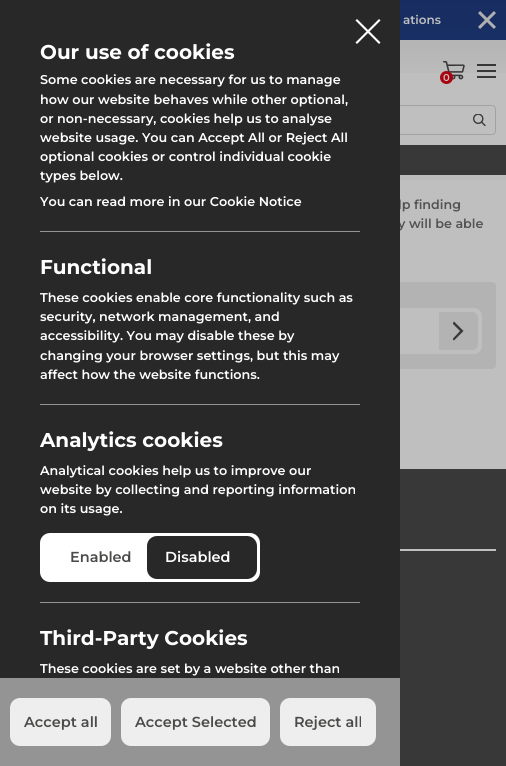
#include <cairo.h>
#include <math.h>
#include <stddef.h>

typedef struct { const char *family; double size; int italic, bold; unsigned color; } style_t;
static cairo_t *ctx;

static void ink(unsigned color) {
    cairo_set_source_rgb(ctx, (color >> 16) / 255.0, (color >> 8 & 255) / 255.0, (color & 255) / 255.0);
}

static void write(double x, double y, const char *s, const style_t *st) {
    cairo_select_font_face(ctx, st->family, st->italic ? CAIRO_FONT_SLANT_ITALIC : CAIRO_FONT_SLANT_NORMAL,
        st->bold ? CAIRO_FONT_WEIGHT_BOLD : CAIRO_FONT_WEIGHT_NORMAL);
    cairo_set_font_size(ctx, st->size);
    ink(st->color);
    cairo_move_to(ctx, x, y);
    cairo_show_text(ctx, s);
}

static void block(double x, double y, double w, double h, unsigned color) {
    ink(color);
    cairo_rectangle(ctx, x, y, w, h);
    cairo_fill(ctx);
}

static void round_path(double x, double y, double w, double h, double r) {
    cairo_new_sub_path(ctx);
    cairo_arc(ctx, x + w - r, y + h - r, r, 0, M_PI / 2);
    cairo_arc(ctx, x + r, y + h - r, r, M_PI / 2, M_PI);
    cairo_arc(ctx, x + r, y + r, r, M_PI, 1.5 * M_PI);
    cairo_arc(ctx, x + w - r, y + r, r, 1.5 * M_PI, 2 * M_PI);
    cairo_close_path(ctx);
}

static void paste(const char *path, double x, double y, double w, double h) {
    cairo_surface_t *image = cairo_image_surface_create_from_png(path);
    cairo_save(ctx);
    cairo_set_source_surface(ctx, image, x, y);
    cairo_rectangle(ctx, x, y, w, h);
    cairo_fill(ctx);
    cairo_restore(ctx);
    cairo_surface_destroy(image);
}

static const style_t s1 = {"Montserrat Thin", 12.75, 0, 0, 0x535353};
static const style_t s2 = {"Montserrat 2 Thin", 20, 0, 0, 0xffffff};
static const style_t s3 = {"Montserrat Thin", 12.75, 0, 0, 0xffffff};
static const style_t s4 = {"Montserrat Thin", 14.5, 0, 0, 0x4b4b4a};
static const style_t s5 = {"Montserrat Thin", 14.5, 0, 0, 0xffffff};
static const style_t s6 = {"Montserrat Thin", 12, 0, 0, 0xbfbfbf};
static const style_t s7 = {"Montserrat Thin", 10, 0, 0, 0xbfbfbf};

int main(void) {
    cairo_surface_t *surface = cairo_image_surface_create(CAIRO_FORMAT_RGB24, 506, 766);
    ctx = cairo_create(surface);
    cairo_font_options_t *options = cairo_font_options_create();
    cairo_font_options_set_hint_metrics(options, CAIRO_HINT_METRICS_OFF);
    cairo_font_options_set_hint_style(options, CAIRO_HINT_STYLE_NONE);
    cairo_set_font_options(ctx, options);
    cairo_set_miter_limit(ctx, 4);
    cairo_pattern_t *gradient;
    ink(0xbfbfbf);
    cairo_paint(ctx);
    block(400, 0, 106, 40, 0x1a326b);
    paste("pic1.png", 478, 11, 18, 18);
    paste("pic2.png", 443, 61, 22, 19);
    ink(0xaa030f);
    cairo_arc(ctx, 446.5, 77.5, 6.5, 0, 2 * M_PI);
    cairo_fill(ctx);
    block(477, 64, 19, 2, 0x383838);
    block(477, 70, 19, 2, 0x383838);
    gradient = cairo_pattern_create_linear(253, 93, 253, 0.1);
    cairo_pattern_add_color_stop_rgba(gradient, 0, 0, 0, 0, 0);
    cairo_pattern_add_color_stop_rgba(gradient, 1, 0, 0, 0, 0.1);
    cairo_set_source(ctx, gradient);
    cairo_pattern_destroy(gradient);
    cairo_rectangle(ctx, 400, 0, 106, 73);
    cairo_fill(ctx);
    round_path(10.5, 105.5, 485, 29, 3.5);
    ink(0xa3a2a1);
    cairo_set_line_width(ctx, 1);
    cairo_stroke(ctx);
    write(398, 209, "lp finding", &s1);
    write(398, 228, "y will be able", &s1);
    ink(0xb3b3b3);
    round_path(10, 282, 486, 87, 4);
    cairo_fill(ctx);
    ink(0xbfbfbf);
    round_path(23, 307, 460, 48, 9);
    cairo_fill_preserve(ctx);
    ink(0xb3b3b3);
    cairo_set_line_width(ctx, 2);
    cairo_stroke(ctx);
    block(0, 0, 400, 678, 0x282828);
    ink(0xffffff);
    cairo_new_path(ctx);
    cairo_move_to(ctx, 379, 19);
    cairo_line_to(ctx, 380.5, 20.5);
    cairo_line_to(ctx, 357, 44);
    cairo_line_to(ctx, 355.5, 42.5);
    cairo_close_path(ctx);
    cairo_fill(ctx);
    cairo_new_path(ctx);
    cairo_move_to(ctx, 355.5, 20.5);
    cairo_line_to(ctx, 357, 19);
    cairo_line_to(ctx, 380.5, 42.5);
    cairo_line_to(ctx, 379, 44);
    cairo_close_path(ctx);
    cairo_fill(ctx);
    write(40, 59, "Our use of cookies", &s2);
    write(40, 84, "Some cookies are necessary for us to manage", &s3);
    write(40, 104, "how our website behaves while other optional,", &s3);
    write(40, 123, "or non-necessary, cookies help us to analyse", &s3);
    write(40, 142, "website usage. You can Accept All or Reject All", &s3);
    write(40, 161, "optional cookies or control individual cookie", &s3);
    write(40, 180, "types below.", &s3);
    write(40, 206, "You can read more in our Cookie Notice", &s3);
    block(40, 231, 320, 1, 0x949494);
    write(40, 274, "Functional", &s2);
    write(40, 302, "These cookies enable core functionality such as", &s3);
    write(40, 321, "security, network management, and", &s3);
    write(40, 340, "accessibility. You may disable these by", &s3);
    write(40, 360, "changing your browser settings, but this may", &s3);
    write(40, 379, "affect how the website functions.", &s3);
    block(40, 404, 320, 1, 0x949494);
    write(40, 447, "Analytics cookies", &s2);
    write(40, 475, "Analytical cookies help us to improve our", &s3);
    write(40, 494, "website by collecting and reporting information", &s3);
    write(40, 513, "on its usage.", &s3);
    round_path(40, 533, 220, 49, 10);
    cairo_fill(ctx);
    write(70, 562, "Enabled", &s4);
    ink(0x282828);
    round_path(147, 536, 110, 43, 10);
    cairo_fill(ctx);
    write(165, 562, "Disabled", &s5);
    block(40, 602, 320, 1, 0x949494);
    write(40, 645, "Third-Party Cookies", &s2);
    write(40, 673, "These cookies are set by a website other than", &s3);
    block(0, 678, 400, 88, 0x949494);
    ink(0xeeeeee);
    round_path(10, 698, 101, 48, 10);
    cairo_fill(ctx);
    write(24, 727, "Accept all", &s4);
    ink(0xeeeeee);
    round_path(121, 698, 149, 48, 10);
    cairo_fill(ctx);
    write(135, 727, "Accept Selected", &s4);
    ink(0xeeeeee);
    round_path(280, 698, 96, 48, 10);
    cairo_fill(ctx);
    write(294, 727, "Reject all", &s4);
    write(403, 24, "ations", &s6);
    write(443, 81, "0", &s7);
    block(477, 76, 19, 2, 0x383838);
    paste("pic3.png", 473, 114, 13, 13);
    block(400, 145, 106, 30, 0x383838);
    gradient = cairo_pattern_create_linear(253, 213, 253, 120);
    cairo_pattern_add_color_stop_rgba(gradient, 0, 0.749, 0.749, 0.749, 1);
    cairo_pattern_add_color_stop_rgba(gradient, 1, 0.722, 0.722, 0.722, 1);
    cairo_set_source(ctx, gradient);
    cairo_pattern_destroy(gradient);
    cairo_rectangle(ctx, 400, 175, 106, 5);
    cairo_fill(ctx);
    ink(0xb3b3b3);
    cairo_new_path(ctx);
    cairo_move_to(ctx, 439, 312);
    cairo_line_to(ctx, 472, 312);
    cairo_curve_to(ctx, 475.5, 312, 478, 314.5, 478, 318);
    cairo_line_to(ctx, 478, 344);
    cairo_curve_to(ctx, 478, 347.5, 475.5, 350, 472, 350);
    cairo_line_to(ctx, 439, 350);
    cairo_close_path(ctx);
    cairo_fill(ctx);
    ink(0x383838);
    cairo_new_path(ctx);
    cairo_move_to(ctx, 454, 321.5);
    cairo_line_to(ctx, 453, 323);
    cairo_line_to(ctx, 453, 324);
    cairo_line_to(ctx, 460, 331);
    cairo_line_to(ctx, 453, 338.5);
    cairo_line_to(ctx, 453, 339.5);
    cairo_line_to(ctx, 454, 340.5);
    cairo_line_to(ctx, 463.5, 331);
    cairo_close_path(ctx);
    cairo_fill(ctx);
    block(400, 469, 106, 297, 0x383838);
    block(400, 549, 96, 2, 0xbfbfbf);
    cairo_surface_write_to_png(surface, "screenshot.png");
    cairo_font_options_destroy(options);
    cairo_destroy(ctx);
    cairo_surface_destroy(surface);
    return 0;
}
